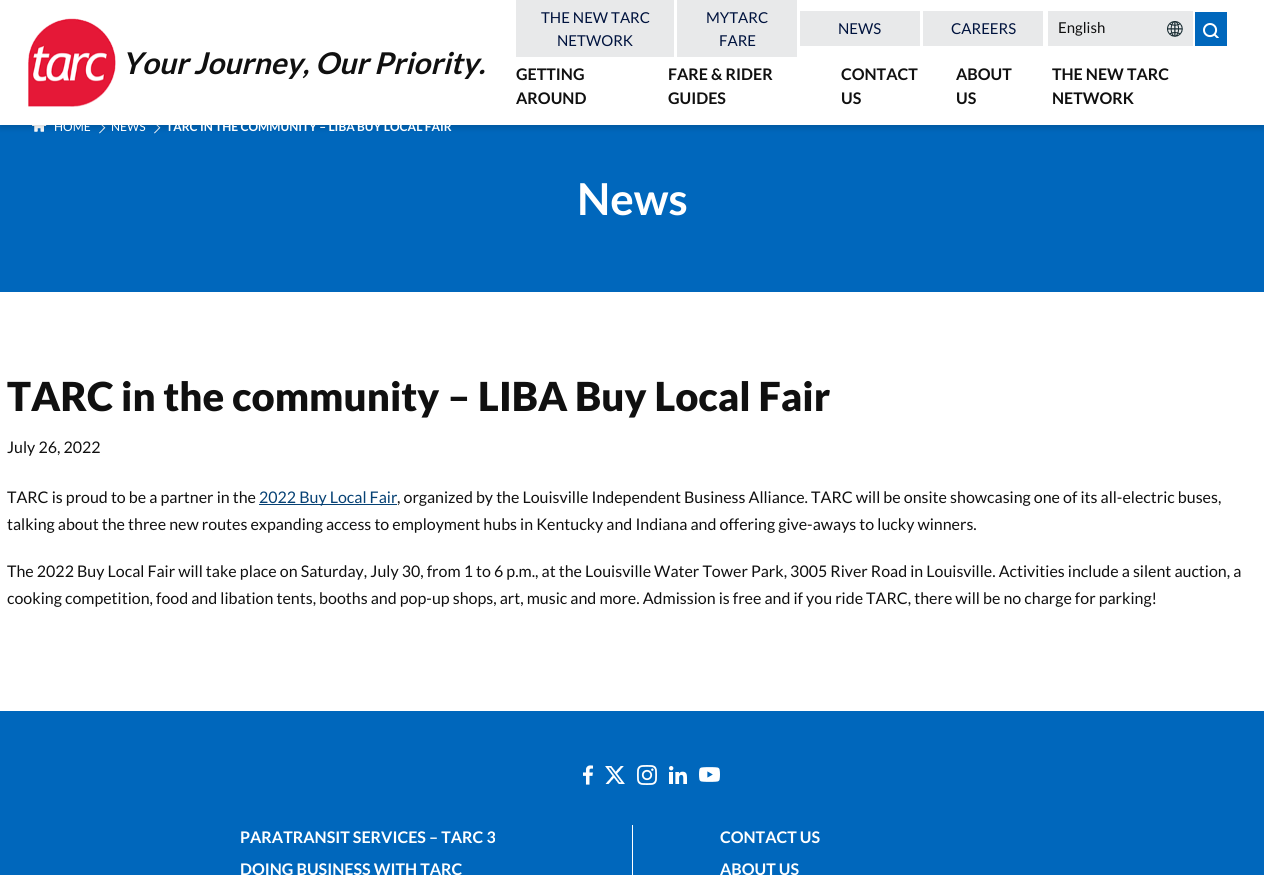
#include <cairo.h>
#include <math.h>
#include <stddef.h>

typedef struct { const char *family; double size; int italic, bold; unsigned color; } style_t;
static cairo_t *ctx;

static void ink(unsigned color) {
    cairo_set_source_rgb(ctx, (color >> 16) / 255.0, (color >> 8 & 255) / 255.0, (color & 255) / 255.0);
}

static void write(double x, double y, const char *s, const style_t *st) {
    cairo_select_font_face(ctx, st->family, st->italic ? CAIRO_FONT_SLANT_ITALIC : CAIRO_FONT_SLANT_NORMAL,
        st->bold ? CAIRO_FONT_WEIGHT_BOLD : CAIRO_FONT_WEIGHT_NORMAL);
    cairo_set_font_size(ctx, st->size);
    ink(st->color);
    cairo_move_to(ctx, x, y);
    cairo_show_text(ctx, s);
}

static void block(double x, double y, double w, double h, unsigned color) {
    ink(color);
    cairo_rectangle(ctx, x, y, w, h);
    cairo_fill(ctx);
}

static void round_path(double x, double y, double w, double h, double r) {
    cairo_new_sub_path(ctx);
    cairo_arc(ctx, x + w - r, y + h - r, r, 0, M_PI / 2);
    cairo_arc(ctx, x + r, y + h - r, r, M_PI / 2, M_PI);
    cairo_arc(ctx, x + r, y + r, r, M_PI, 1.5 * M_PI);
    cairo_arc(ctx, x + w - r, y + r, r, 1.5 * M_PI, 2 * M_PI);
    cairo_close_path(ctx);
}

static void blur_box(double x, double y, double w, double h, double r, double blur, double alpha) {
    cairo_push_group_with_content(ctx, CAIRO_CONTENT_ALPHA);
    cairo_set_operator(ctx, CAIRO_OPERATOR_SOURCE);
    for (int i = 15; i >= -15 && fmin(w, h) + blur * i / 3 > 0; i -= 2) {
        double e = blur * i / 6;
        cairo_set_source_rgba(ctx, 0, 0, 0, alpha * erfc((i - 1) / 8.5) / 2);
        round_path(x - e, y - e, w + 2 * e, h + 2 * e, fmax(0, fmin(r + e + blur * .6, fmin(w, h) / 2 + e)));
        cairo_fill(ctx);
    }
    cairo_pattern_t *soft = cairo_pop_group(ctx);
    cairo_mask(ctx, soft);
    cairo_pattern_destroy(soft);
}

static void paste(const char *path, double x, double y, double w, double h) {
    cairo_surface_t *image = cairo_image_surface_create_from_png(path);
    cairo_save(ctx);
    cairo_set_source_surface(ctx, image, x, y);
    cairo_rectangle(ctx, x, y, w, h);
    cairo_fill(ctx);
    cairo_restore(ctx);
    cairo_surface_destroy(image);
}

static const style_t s1 = {"Lato", 30, 1, 1, 0x101010};
static const style_t s2 = {"Lato", 15, 0, 0, 0x00133e};
static const style_t s3 = {"Lato", 15, 0, 0, 0x101010};
static const style_t s4 = {"Lato", 16, 0, 1, 0x101010};
static const style_t s5 = {"Lato", 12, 0, 0, 0xffffff};
static const style_t s6 = {"Lato", 12, 0, 1, 0xffffff};
static const style_t s7 = {"Lato", 44, 0, 1, 0xffffff};
static const style_t s8 = {"Lato Black", 40, 0, 0, 0x101010};
static const style_t s9 = {"Lato", 16, 0, 0, 0x101010};
static const style_t s10 = {"Lato", 16, 0, 0, 0x064174};
static const style_t s11 = {"Lato", 16, 0, 1, 0xffffff};

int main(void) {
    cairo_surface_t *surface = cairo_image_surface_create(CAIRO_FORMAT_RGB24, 1264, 875);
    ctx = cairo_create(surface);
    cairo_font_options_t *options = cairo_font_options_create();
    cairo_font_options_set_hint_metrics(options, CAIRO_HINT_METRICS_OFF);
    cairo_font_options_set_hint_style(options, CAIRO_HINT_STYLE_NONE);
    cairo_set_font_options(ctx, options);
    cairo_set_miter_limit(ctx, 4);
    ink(0xffffff);
    cairo_paint(ctx);
    block(0, 125, 1264, 167, 0x0067bc);
    paste("pic4.png", 32, 125, 15, 7);
    paste("pic5.png", 99, 125, 7, 9);
    paste("pic5.png", 154, 125, 7, 9);
    ink(0x000000);
    blur_box(0, 3, 1264, 125, 0, 3, 0.16);
    block(0, 0, 1264, 125, 0xffffff);
    paste("pic1.png", 28, 18, 88, 89);
    write(122, 74, "Your Journey, Our Priority.", &s1);
    block(516, 0, 158, 57, 0xe8e9ea);
    write(541, 23, "THE NEW TARC", &s2);
    write(557, 46, "NETWORK", &s2);
    block(677, 0, 120, 57, 0xe8e9ea);
    write(706, 23, "MYTARC", &s2);
    write(719, 46, "FARE", &s2);
    block(800, 11, 120, 35, 0xe8e9ea);
    write(838, 34, "NEWS", &s2);
    block(923, 11, 120, 35, 0xe8e9ea);
    write(951, 34, "CAREERS", &s2);
    block(1048, 11, 145, 35, 0xe8e9ea);
    paste("pic2.png", 1167, 21, 16, 16);
    write(1058, 33, "English", &s3);
    block(1195, 12, 32, 34, 0x0067bc);
    paste("pic3.png", 1203, 23, 16, 15);
    write(516, 80, "GETTING", &s4);
    write(516, 104, "AROUND", &s4);
    write(668, 80, "FARE & RIDER", &s4);
    write(668, 104, "GUIDES", &s4);
    write(841, 80, "CONTACT", &s4);
    write(841, 104, "US", &s4);
    write(956, 80, "ABOUT", &s4);
    write(956, 104, "US", &s4);
    write(1052, 80, "THE NEW TARC", &s4);
    write(1052, 104, "NETWORK", &s4);
    write(54, 131, "HOME", &s5);
    write(111, 131, "NEWS", &s5);
    write(166, 131, "TARC IN THE COMMUNITY – LIBA BUY LOCAL FAIR", &s6);
    write(577, 215, "News", &s7);
    write(7, 411, "TARC in the community – LIBA Buy Local Fair", &s8);
    write(7, 453, "July 26, 2022", &s9);
    write(7, 503, "TARC is proud to be a partner in the", &s9);
    block(259, 504, 138, 1, 0x064174);
    write(259, 503, "2022 Buy Local Fair", &s10);
    write(397, 503, ", organized by the Louisville Independent Business Alliance. TARC will be onsite showcasing one of its all-electric buses,", &s9);
    write(7, 530, "talking about the three new routes expanding access to employment hubs in Kentucky and Indiana and offering give-aways to lucky winners.", &s9);
    write(7, 577, "The 2022 Buy Local Fair will take place on Saturday, July 30, from 1 to 6 p.m., at the Louisville Water Tower Park, 3005 River Road in Louisville. Activities include a silent auction, a", &s9);
    write(7, 604, "cooking competition, food and libation tents, booths and pop-up shops, art, music and more. Admission is free and if you ride TARC, there will be no charge for parking!", &s9);
    block(0, 711, 1264, 164, 0x0067bc);
    paste("pic6.png", 583, 765, 10, 20);
    paste("pic7.png", 605, 766, 20, 18);
    paste("pic8.png", 637, 765, 20, 20);
    paste("pic9.png", 669, 766, 18, 18);
    paste("pic10.png", 699, 767, 21, 15);
    block(632, 825, 1, 50, 0xffffff);
    write(240, 843, "PARATRANSIT SERVICES – TARC 3", &s11);
    write(720, 843, "CONTACT US", &s11);
    write(240, 875, "DOING BUSINESS WITH TARC", &s11);
    write(720, 875, "ABOUT US", &s11);
    cairo_surface_write_to_png(surface, "screenshot.png");
    cairo_font_options_destroy(options);
    cairo_destroy(ctx);
    cairo_surface_destroy(surface);
    return 0;
}
